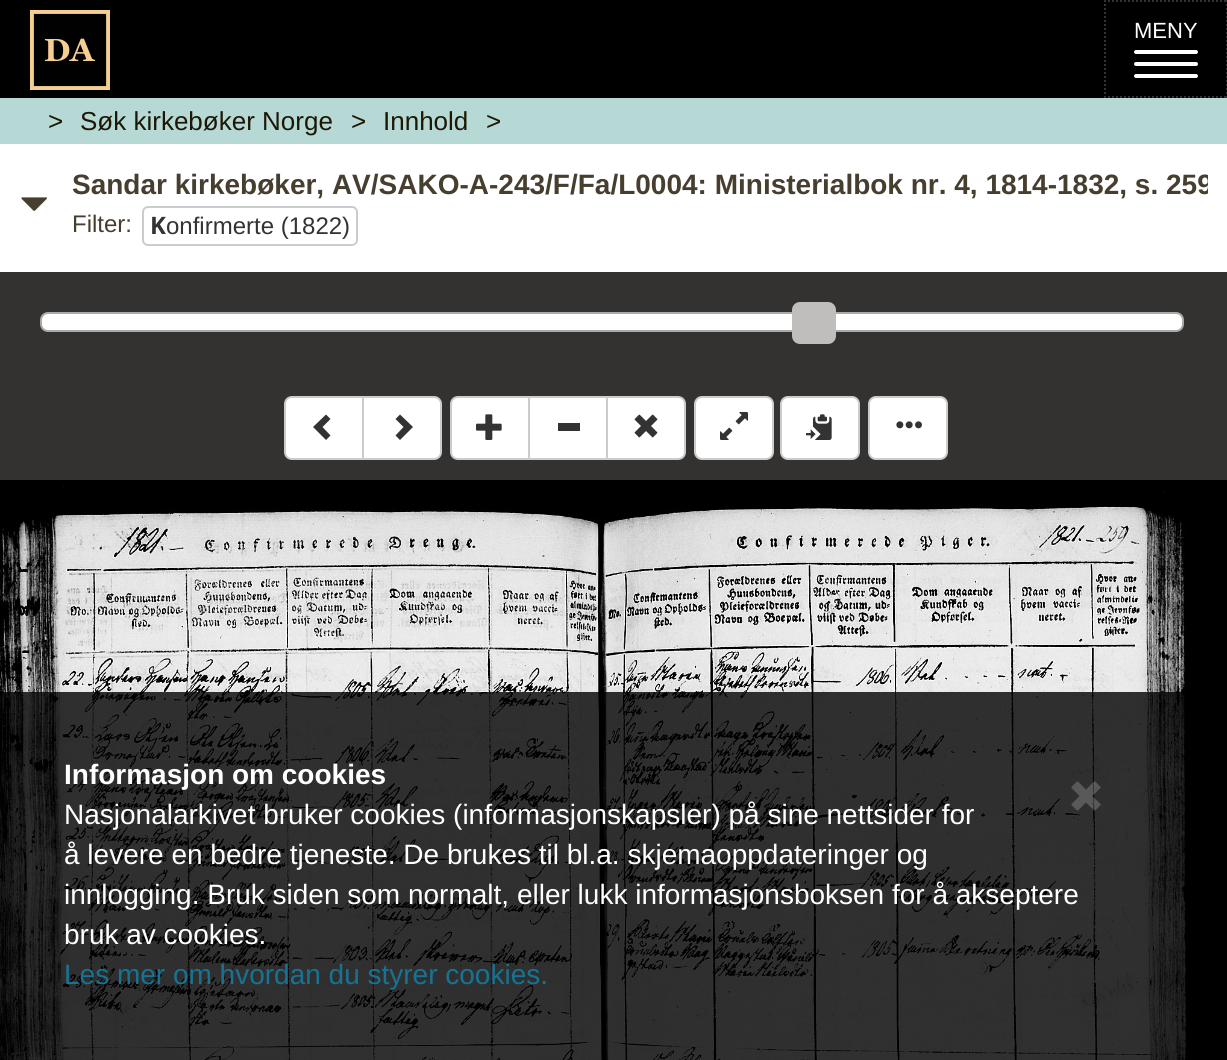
#include <cairo.h>
#include <math.h>
#include <stddef.h>

typedef struct { const char *family; double size; int italic, bold; unsigned color; } style_t;
static cairo_t *ctx;

static void ink(unsigned color) {
    cairo_set_source_rgb(ctx, (color >> 16) / 255.0, (color >> 8 & 255) / 255.0, (color & 255) / 255.0);
}

static void write(double x, double y, const char *s, const style_t *st) {
    cairo_select_font_face(ctx, st->family, st->italic ? CAIRO_FONT_SLANT_ITALIC : CAIRO_FONT_SLANT_NORMAL,
        st->bold ? CAIRO_FONT_WEIGHT_BOLD : CAIRO_FONT_WEIGHT_NORMAL);
    cairo_set_font_size(ctx, st->size);
    ink(st->color);
    cairo_move_to(ctx, x, y);
    cairo_show_text(ctx, s);
}

static void block(double x, double y, double w, double h, unsigned color) {
    ink(color);
    cairo_rectangle(ctx, x, y, w, h);
    cairo_fill(ctx);
}

static void round_path(double x, double y, double w, double h, double r) {
    cairo_new_sub_path(ctx);
    cairo_arc(ctx, x + w - r, y + h - r, r, 0, M_PI / 2);
    cairo_arc(ctx, x + r, y + h - r, r, M_PI / 2, M_PI);
    cairo_arc(ctx, x + r, y + r, r, M_PI, 1.5 * M_PI);
    cairo_arc(ctx, x + w - r, y + r, r, 1.5 * M_PI, 2 * M_PI);
    cairo_close_path(ctx);
}

static void paste(const char *path, double x, double y, double w, double h) {
    cairo_surface_t *image = cairo_image_surface_create_from_png(path);
    cairo_save(ctx);
    cairo_set_source_surface(ctx, image, x, y);
    cairo_rectangle(ctx, x, y, w, h);
    cairo_fill(ctx);
    cairo_restore(ctx);
    cairo_surface_destroy(image);
}

static const style_t s1 = {"Liberation Sans", 22, 0, 0, 0xffffff};
static const style_t s2 = {"Liberation Sans", 26, 0, 0, 0x1d1705};
static const style_t s3 = {"Liberation Sans", 28, 0, 1, 0x463e2f};
static const style_t s4 = {"Liberation Sans", 24, 0, 0, 0x463e2f};
static const style_t s5 = {"Noto Sans", 24, 0, 1, 0x333333};
static const style_t s6 = {"Liberation Sans", 24, 0, 0, 0x333333};
static const style_t s7 = {"Liberation Sans", 28, 0, 1, 0xffffff};
static const style_t s8 = {"Liberation Sans", 28, 0, 0, 0xffffff};
static const style_t s9 = {"Liberation Sans", 28, 0, 0, 0x177391};

int main(void) {
    cairo_surface_t *surface = cairo_image_surface_create(CAIRO_FORMAT_RGB24, 1227, 1060);
    ctx = cairo_create(surface);
    cairo_font_options_t *options = cairo_font_options_create();
    cairo_font_options_set_hint_metrics(options, CAIRO_HINT_METRICS_OFF);
    cairo_font_options_set_hint_style(options, CAIRO_HINT_STYLE_NONE);
    cairo_set_font_options(ctx, options);
    cairo_set_miter_limit(ctx, 4);
    ink(0xffffff);
    cairo_paint(ctx);
    block(0, 0, 1227, 98, 0x000000);
    paste("pic1.png", 30, 10, 80, 80);
    cairo_new_path(ctx);
    cairo_move_to(ctx, 1104, 1);
    cairo_line_to(ctx, 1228, 1);
    ink(0x333333);
    cairo_set_dash(ctx, (double[]){2, 2}, 2, 0);
    cairo_stroke(ctx);
    cairo_new_path(ctx);
    cairo_move_to(ctx, 1227, 0);
    cairo_line_to(ctx, 1227, 98);
    cairo_stroke(ctx);
    cairo_new_path(ctx);
    cairo_move_to(ctx, 1104, 97);
    cairo_line_to(ctx, 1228, 97);
    cairo_stroke(ctx);
    cairo_new_path(ctx);
    cairo_move_to(ctx, 1105, 0);
    cairo_line_to(ctx, 1105, 98);
    cairo_stroke(ctx);
    write(1134, 38, "MENY", &s1);
    round_path(1134, 50, 64, 4, 2);
    cairo_fill(ctx);
    round_path(1134, 62, 64, 4, 2);
    cairo_fill(ctx);
    round_path(1134, 74, 64, 4, 2);
    cairo_fill(ctx);
    block(0, 98, 1227, 46, 0xb6d9d6);
    write(48, 130, ">", &s2);
    write(80, 130, "Søk kirkebøker Norge", &s2);
    write(351, 130, ">", &s2);
    write(383, 130, "Innhold", &s2);
    write(486, 130, ">", &s2);
    paste("pic2.png", 21, 197, 26, 14);
    cairo_save(ctx);
    cairo_rectangle(ctx, 68, 166, 1140, 38);
    cairo_clip(ctx);
    write(72, 194, "Sandar kirkebøker, AV/SAKO-A-243/F/Fa/L0004: Ministerialbok nr. 4, 1814-1832, s. 259", &s3);
    cairo_restore(ctx);
    write(72, 232, "Filter:", &s4);
    round_path(143, 207, 214, 38, 5);
    ink(0xcccccc);
    cairo_set_dash(ctx, NULL, 0, 0);
    cairo_stroke(ctx);
    write(150, 234, "K", &s5);
    write(166, 234, "onfirmerte (1822)", &s6);
    block(0, 272, 1227, 208, 0x333231);
    ink(0xffffff);
    round_path(41, 313, 1142, 18, 7);
    cairo_fill_preserve(ctx);
    ink(0xaaaaaa);
    cairo_stroke(ctx);
    ink(0xbfbebd);
    round_path(793, 303, 42, 40, 7);
    cairo_fill_preserve(ctx);
    cairo_stroke(ctx);
    ink(0xffffff);
    cairo_new_path(ctx);
    cairo_move_to(ctx, 292, 397);
    cairo_line_to(ctx, 363, 397);
    cairo_line_to(ctx, 363, 459);
    cairo_line_to(ctx, 292, 459);
    cairo_curve_to(ctx, 288, 459, 285, 456, 285, 452);
    cairo_line_to(ctx, 285, 404);
    cairo_curve_to(ctx, 285, 400, 288, 397, 292, 397);
    cairo_close_path(ctx);
    cairo_fill_preserve(ctx);
    ink(0xcccccc);
    cairo_stroke(ctx);
    ink(0x333333);
    cairo_new_path(ctx);
    cairo_move_to(ctx, 330.5, 419);
    cairo_line_to(ctx, 322.5, 427);
    cairo_line_to(ctx, 330.5, 435.5);
    cairo_line_to(ctx, 326, 440);
    cairo_line_to(ctx, 313, 427);
    cairo_line_to(ctx, 326, 414.5);
    cairo_close_path(ctx);
    cairo_fill(ctx);
    ink(0xffffff);
    cairo_new_path(ctx);
    cairo_move_to(ctx, 363, 397);
    cairo_line_to(ctx, 434, 397);
    cairo_curve_to(ctx, 438, 397, 441, 400, 441, 404);
    cairo_line_to(ctx, 441, 452);
    cairo_curve_to(ctx, 441, 456, 438, 459, 434, 459);
    cairo_line_to(ctx, 363, 459);
    cairo_close_path(ctx);
    cairo_fill_preserve(ctx);
    ink(0xcccccc);
    cairo_stroke(ctx);
    ink(0x333333);
    cairo_new_path(ctx);
    cairo_move_to(ctx, 413, 427);
    cairo_line_to(ctx, 400, 440);
    cairo_line_to(ctx, 395.5, 435.5);
    cairo_line_to(ctx, 403.5, 427);
    cairo_line_to(ctx, 395.5, 419);
    cairo_line_to(ctx, 400, 414.5);
    cairo_close_path(ctx);
    cairo_fill(ctx);
    ink(0xffffff);
    cairo_new_path(ctx);
    cairo_move_to(ctx, 458, 397);
    cairo_line_to(ctx, 529, 397);
    cairo_line_to(ctx, 529, 459);
    cairo_line_to(ctx, 458, 459);
    cairo_curve_to(ctx, 454, 459, 451, 456, 451, 452);
    cairo_line_to(ctx, 451, 404);
    cairo_curve_to(ctx, 451, 400, 454, 397, 458, 397);
    cairo_close_path(ctx);
    cairo_fill_preserve(ctx);
    ink(0xcccccc);
    cairo_stroke(ctx);
    paste("pic3.png", 476, 414, 26, 26);
    ink(0xffffff);
    cairo_rectangle(ctx, 529, 397, 78, 62);
    cairo_fill_preserve(ctx);
    ink(0xcccccc);
    cairo_stroke(ctx);
    block(558, 423, 22, 8, 0x333333);
    ink(0xffffff);
    cairo_new_path(ctx);
    cairo_move_to(ctx, 607, 397);
    cairo_line_to(ctx, 678, 397);
    cairo_curve_to(ctx, 682, 397, 685, 400, 685, 404);
    cairo_line_to(ctx, 685, 452);
    cairo_curve_to(ctx, 685, 456, 682, 459, 678, 459);
    cairo_line_to(ctx, 607, 459);
    cairo_close_path(ctx);
    cairo_fill_preserve(ctx);
    ink(0xcccccc);
    cairo_stroke(ctx);
    paste("pic4.png", 634, 414, 24, 24);
    ink(0xffffff);
    round_path(695, 397, 78, 62, 7);
    cairo_fill_preserve(ctx);
    ink(0xcccccc);
    cairo_stroke(ctx);
    paste("pic5.png", 720, 412, 28, 28);
    ink(0xffffff);
    round_path(781, 397, 78, 62, 7);
    cairo_fill_preserve(ctx);
    ink(0xcccccc);
    cairo_stroke(ctx);
    paste("pic6.png", 806, 414, 26, 26);
    ink(0xffffff);
    round_path(869, 397, 78, 62, 7);
    cairo_fill_preserve(ctx);
    ink(0xcccccc);
    cairo_stroke(ctx);
    paste("pic7.png", 896, 421, 26, 8);
    paste("pic8.png", 0, 480, 1227, 580);
    cairo_set_source_rgba(ctx, 0, 0, 0, 0.8);
    cairo_rectangle(ctx, 0, 692, 1187, 368);
    cairo_fill(ctx);
    write(64, 784, "Informasjon om cookies", &s7);
    paste("pic9.png", 1071, 781, 30, 30);
    write(64, 824, "Nasjonalarkivet bruker cookies (informasjonskapsler) på sine nettsider for", &s8);
    write(64, 864, "å levere en bedre tjeneste. De brukes til bl.a. skjemaoppdateringer og", &s8);
    write(64, 904, "innlogging. Bruk siden som normalt, eller lukk informasjonsboksen for å akseptere", &s8);
    write(64, 944, "bruk av cookies.", &s8);
    write(64, 984, "Les mer om hvordan du styrer cookies.", &s9);
    cairo_surface_write_to_png(surface, "screenshot.png");
    cairo_font_options_destroy(options);
    cairo_destroy(ctx);
    cairo_surface_destroy(surface);
    return 0;
}
